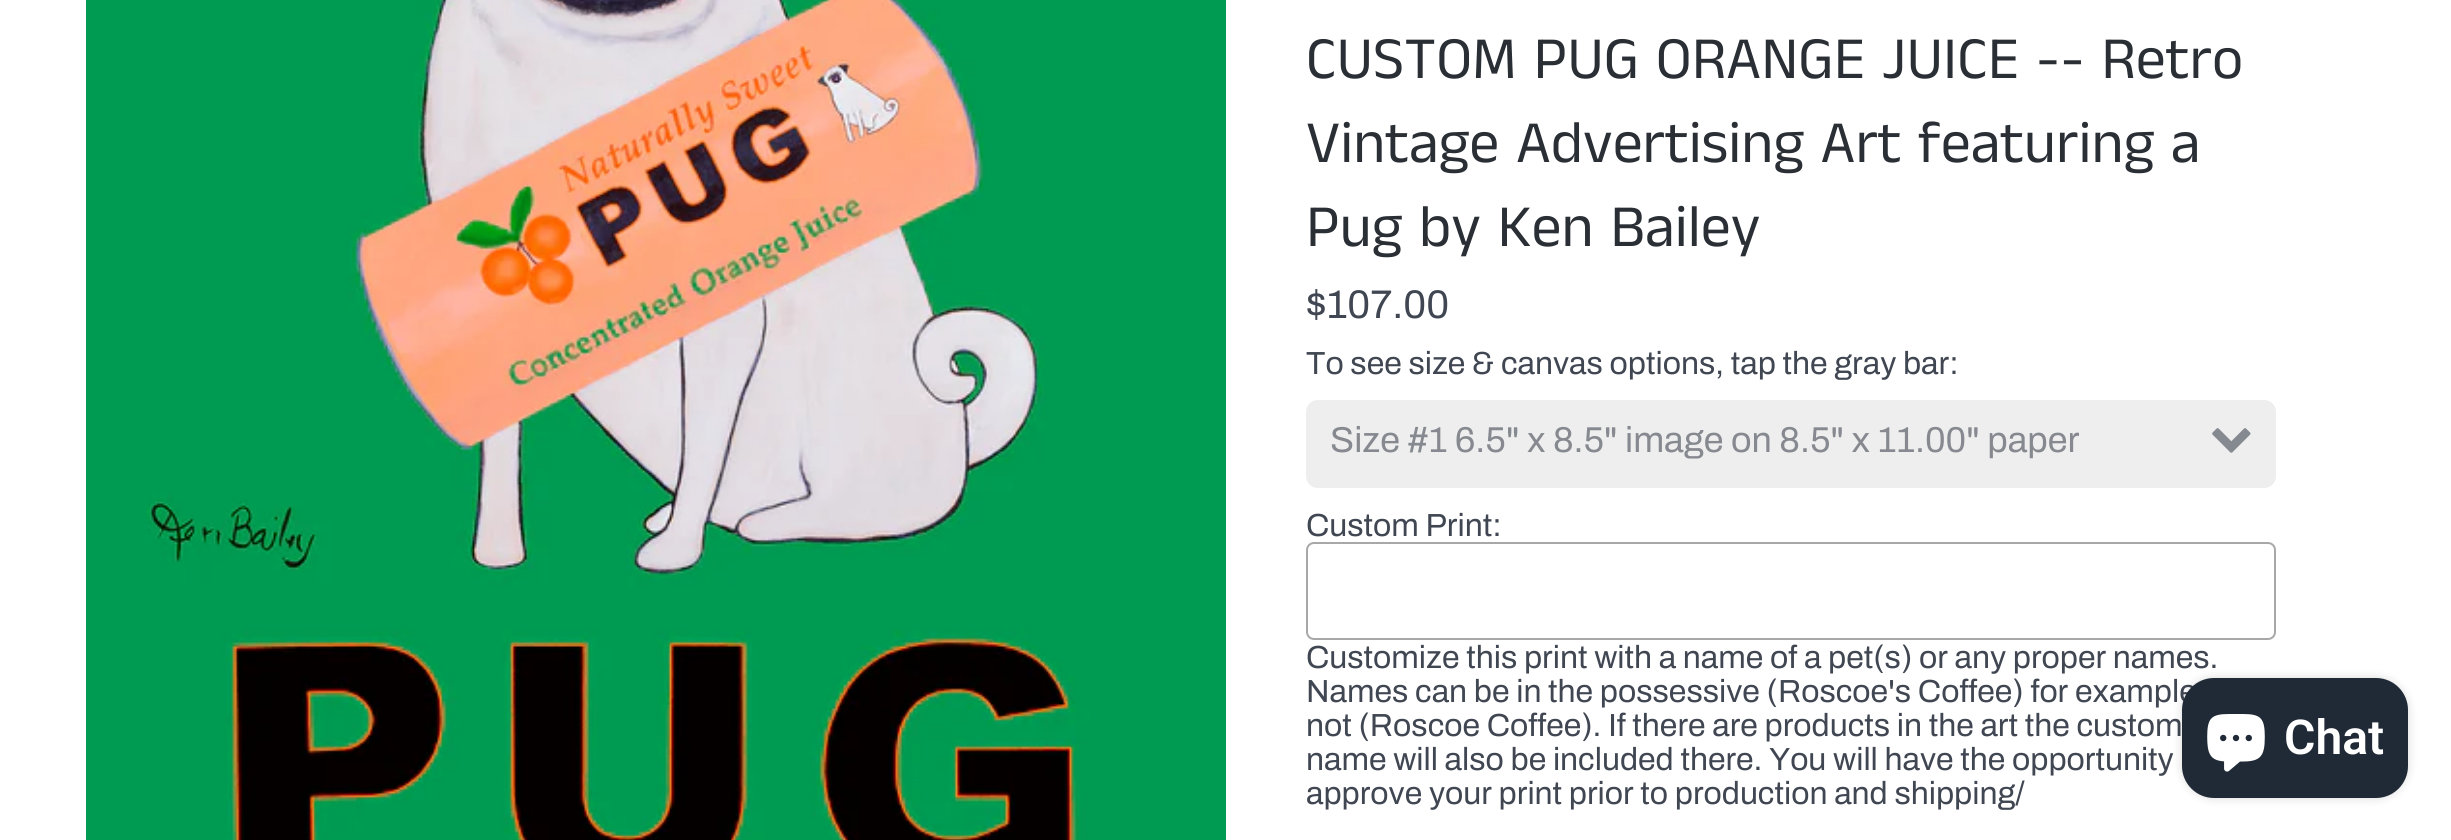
#include <cairo.h>
#include <math.h>
#include <stddef.h>

typedef struct { const char *family; double size; int italic, bold; unsigned color; } style_t;
static cairo_t *ctx;

static void ink(unsigned color) {
    cairo_set_source_rgb(ctx, (color >> 16) / 255.0, (color >> 8 & 255) / 255.0, (color & 255) / 255.0);
}

static void write(double x, double y, const char *s, const style_t *st) {
    cairo_select_font_face(ctx, st->family, st->italic ? CAIRO_FONT_SLANT_ITALIC : CAIRO_FONT_SLANT_NORMAL,
        st->bold ? CAIRO_FONT_WEIGHT_BOLD : CAIRO_FONT_WEIGHT_NORMAL);
    cairo_set_font_size(ctx, st->size);
    ink(st->color);
    cairo_move_to(ctx, x, y);
    cairo_show_text(ctx, s);
}

static void round_path(double x, double y, double w, double h, double r) {
    cairo_new_sub_path(ctx);
    cairo_arc(ctx, x + w - r, y + h - r, r, 0, M_PI / 2);
    cairo_arc(ctx, x + r, y + h - r, r, M_PI / 2, M_PI);
    cairo_arc(ctx, x + r, y + r, r, M_PI, 1.5 * M_PI);
    cairo_arc(ctx, x + w - r, y + r, r, 1.5 * M_PI, 2 * M_PI);
    cairo_close_path(ctx);
}

static void blur_box(double x, double y, double w, double h, double r, double blur, double alpha) {
    cairo_push_group_with_content(ctx, CAIRO_CONTENT_ALPHA);
    cairo_set_operator(ctx, CAIRO_OPERATOR_SOURCE);
    for (int i = 15; i >= -15 && fmin(w, h) + blur * i / 3 > 0; i -= 2) {
        double e = blur * i / 6;
        cairo_set_source_rgba(ctx, 0, 0, 0, alpha * erfc((i - 1) / 8.5) / 2);
        round_path(x - e, y - e, w + 2 * e, h + 2 * e, fmax(0, fmin(r + e + blur * .6, fmin(w, h) / 2 + e)));
        cairo_fill(ctx);
    }
    cairo_pattern_t *soft = cairo_pop_group(ctx);
    cairo_mask(ctx, soft);
    cairo_pattern_destroy(soft);
}

static void paste(const char *path, double x, double y, double w, double h) {
    cairo_surface_t *image = cairo_image_surface_create_from_png(path);
    cairo_save(ctx);
    cairo_set_source_surface(ctx, image, x, y);
    cairo_rectangle(ctx, x, y, w, h);
    cairo_fill(ctx);
    cairo_restore(ctx);
    cairo_surface_destroy(image);
}

static const style_t s1 = {"Anek Tamil", 60, 0, 0, 0x2a2e35};
static const style_t s2 = {"Archivo", 40, 0, 0, 0x404752};
static const style_t s3 = {"Archivo", 32, 0, 0, 0x404752};
static const style_t s4 = {"Archivo", 36, 0, 0, 0x868a90};
static const style_t s5 = {"Roboto SemiBold", 48, 0, 0, 0xffffff};

int main(void) {
    cairo_surface_t *surface = cairo_image_surface_create(CAIRO_FORMAT_RGB24, 2451, 840);
    ctx = cairo_create(surface);
    cairo_font_options_t *options = cairo_font_options_create();
    cairo_font_options_set_hint_metrics(options, CAIRO_HINT_METRICS_OFF);
    cairo_font_options_set_hint_style(options, CAIRO_HINT_STYLE_NONE);
    cairo_set_font_options(ctx, options);
    cairo_set_miter_limit(ctx, 4);
    ink(0xffffff);
    cairo_paint(ctx);
    paste("pic1.png", 86, 0, 1140, 840);
    write(1306, 78, "CUSTOM PUG ORANGE JUICE -- Retro", &s1);
    write(1306, 162, "Vintage Advertising Art featuring a", &s1);
    write(1306, 246, "Pug by Ken Bailey", &s1);
    write(1306, 318, "$107.00", &s2);
    write(1306, 374, "To see size & canvas options, tap the gray bar:", &s3);
    ink(0xeeeeee);
    round_path(1306, 400, 970, 88, 12);
    cairo_fill(ctx);
    write(1330, 452, "Size #1 6.5\" x 8.5\" image on 8.5\" x 11.00\" paper", &s4);
    paste("pic2.png", 2212, 428, 39, 25);
    write(1306, 536, "Custom Print:", &s3);
    round_path(1307, 543, 968, 96, 7);
    ink(0xa8a8a8);
    cairo_stroke(ctx);
    write(1306, 668, "Customize this print with a name of a pet(s) or any proper names.", &s3);
    write(1306, 702, "Names can be in the possessive (Roscoe's Coffee) for example", &s3);
    write(1306, 736, "not (Roscoe Coffee). If there are products in the art the custom", &s3);
    write(1306, 770, "name will also be included there. You will have the opportunity", &s3);
    write(1306, 804, "approve your print prior to production and shipping/", &s3);
    ink(0x000000);
    blur_box(2182, 678, 226, 120, 32, 5, 0.15);
    ink(0x202a36);
    round_path(2182, 678, 226, 120, 32);
    cairo_fill(ctx);
    paste("pic3.png", 2207, 714, 58, 58);
    write(2284, 754, "Chat", &s5);
    cairo_surface_write_to_png(surface, "screenshot.png");
    cairo_font_options_destroy(options);
    cairo_destroy(ctx);
    cairo_surface_destroy(surface);
    return 0;
}
